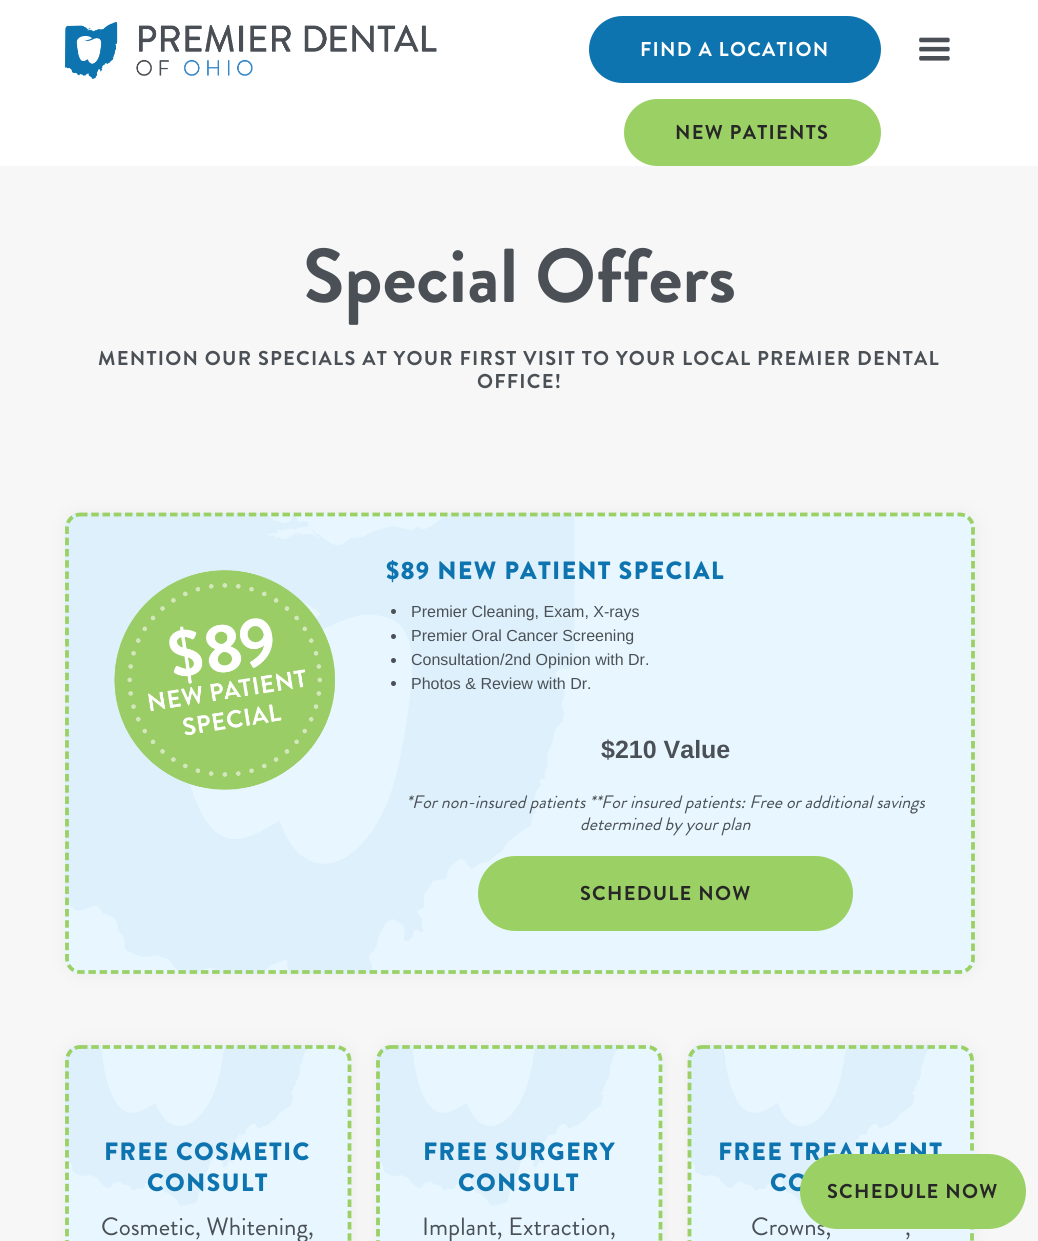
#include <cairo.h>
#include <math.h>
#include <stddef.h>

typedef struct { const char *family; double size; int italic, bold; unsigned color; } style_t;
static cairo_t *ctx;

static void ink(unsigned color) {
    cairo_set_source_rgb(ctx, (color >> 16) / 255.0, (color >> 8 & 255) / 255.0, (color & 255) / 255.0);
}

static void write(double x, double y, const char *s, const style_t *st) {
    cairo_select_font_face(ctx, st->family, st->italic ? CAIRO_FONT_SLANT_ITALIC : CAIRO_FONT_SLANT_NORMAL,
        st->bold ? CAIRO_FONT_WEIGHT_BOLD : CAIRO_FONT_WEIGHT_NORMAL);
    cairo_set_font_size(ctx, st->size);
    ink(st->color);
    cairo_move_to(ctx, x, y);
    cairo_show_text(ctx, s);
}

static void write_spaced(double x, double y, const char *s, double letter, double word) {
    cairo_move_to(ctx, x, y);
    while (*s) {
        char ch[5] = {0};
        int n = 0;
        do ch[n++] = *s++; while ((*s & 0xC0) == 0x80);
        cairo_show_text(ctx, ch);
        cairo_rel_move_to(ctx, letter + word * (*ch == ' '), 0);
    }
}

static void block(double x, double y, double w, double h, unsigned color) {
    ink(color);
    cairo_rectangle(ctx, x, y, w, h);
    cairo_fill(ctx);
}

static void round_path(double x, double y, double w, double h, double r) {
    cairo_new_sub_path(ctx);
    cairo_arc(ctx, x + w - r, y + h - r, r, 0, M_PI / 2);
    cairo_arc(ctx, x + r, y + h - r, r, M_PI / 2, M_PI);
    cairo_arc(ctx, x + r, y + r, r, M_PI, 1.5 * M_PI);
    cairo_arc(ctx, x + w - r, y + r, r, 1.5 * M_PI, 2 * M_PI);
    cairo_close_path(ctx);
}

static void blur_box(double x, double y, double w, double h, double r, double blur, double alpha) {
    cairo_push_group_with_content(ctx, CAIRO_CONTENT_ALPHA);
    cairo_set_operator(ctx, CAIRO_OPERATOR_SOURCE);
    for (int i = 15; i >= -15 && fmin(w, h) + blur * i / 3 > 0; i -= 2) {
        double e = blur * i / 6;
        cairo_set_source_rgba(ctx, 0, 0, 0, alpha * erfc((i - 1) / 8.5) / 2);
        round_path(x - e, y - e, w + 2 * e, h + 2 * e, fmax(0, fmin(r + e + blur * .6, fmin(w, h) / 2 + e)));
        cairo_fill(ctx);
    }
    cairo_pattern_t *soft = cairo_pop_group(ctx);
    cairo_mask(ctx, soft);
    cairo_pattern_destroy(soft);
}

static void paste(const char *path, double x, double y, double w, double h) {
    cairo_surface_t *image = cairo_image_surface_create_from_png(path);
    cairo_save(ctx);
    cairo_set_source_surface(ctx, image, x, y);
    cairo_rectangle(ctx, x, y, w, h);
    cairo_fill(ctx);
    cairo_restore(ctx);
    cairo_surface_destroy(image);
}

static const style_t s1 = {"Brandon Grotesque", 76.25, 0, 1, 0x4a5055};
static const style_t s2 = {"Liberation Sans", 16, 0, 0, 0x4a5055};
static const style_t s3 = {"Liberation Sans", 25, 0, 1, 0x4a5055};
static const style_t s4 = {"Brandon Grotesque", 18, 1, 0, 0x4a5055};
static const style_t s5 = {"Brandon Grotesque", 25, 0, 0, 0x4a5055};

int main(void) {
    cairo_surface_t *surface = cairo_image_surface_create(CAIRO_FORMAT_RGB24, 1038, 1241);
    ctx = cairo_create(surface);
    cairo_font_options_t *options = cairo_font_options_create();
    cairo_font_options_set_hint_metrics(options, CAIRO_HINT_METRICS_OFF);
    cairo_font_options_set_hint_style(options, CAIRO_HINT_STYLE_NONE);
    cairo_set_font_options(ctx, options);
    cairo_set_miter_limit(ctx, 4);
    ink(0xffffff);
    cairo_paint(ctx);
    paste("pic1.png", 65, 21, 372, 58);
    ink(0x0d74b0);
    round_path(590.5, 17.5, 289, 64, 32);
    cairo_fill_preserve(ctx);
    cairo_set_line_width(ctx, 3);
    cairo_stroke(ctx);
    cairo_select_font_face(ctx, "Brandon Grotesque", CAIRO_FONT_SLANT_NORMAL, CAIRO_FONT_WEIGHT_BOLD);
    cairo_set_font_size(ctx, 20);
    ink(0xffffff);
    write_spaced(640, 56, "FIND A LOCATION", 1.25, 0);
    paste("pic2.png", 919, 37, 31, 24);
    ink(0x9bd065);
    round_path(625.5, 100.5, 254, 64, 32);
    cairo_fill_preserve(ctx);
    cairo_stroke(ctx);
    ink(0x272727);
    write_spaced(675, 139, "NEW PATIENTS", 1.25, 0);
    block(0, 166, 1038, 1075, 0xf7f7f7);
    write(303, 302, "Special Offers", &s1);
    cairo_set_font_size(ctx, 20);
    write_spaced(98, 365, "MENTION OUR SPECIALS AT YOUR FIRST VISIT TO YOUR LOCAL PREMIER DENTAL", 1.25, 0);
    write_spaced(477, 388, "OFFICE!", 1.25, 0);
    ink(0xebebeb);
    blur_box(66, 513, 910, 461, 15, 8, 1);
    ink(0xe8f7ff);
    round_path(65, 513, 910, 461, 15);
    cairo_fill(ctx);
    paste("pic3.png", 65, 513, 510, 461);
    cairo_new_path(ctx);
    cairo_move_to(ctx, 80, 514.5);
    cairo_line_to(ctx, 960, 514.5);
    cairo_curve_to(ctx, 967, 514.5, 973, 520.5, 973, 527.5);
    cairo_line_to(ctx, 973, 959);
    cairo_curve_to(ctx, 973, 966, 967, 972, 960, 972);
    cairo_line_to(ctx, 80, 972);
    cairo_curve_to(ctx, 73, 972, 67, 966, 67, 959);
    cairo_line_to(ctx, 67, 527.5);
    cairo_curve_to(ctx, 67, 520.5, 73, 514.5, 80, 514.5);
    cairo_close_path(ctx);
    ink(0x9bd065);
    cairo_set_line_width(ctx, 3.8);
    cairo_set_dash(ctx, (double[]){7.5, 3.75}, 2, 0);
    cairo_stroke(ctx);
    paste("pic4.png", 114, 570, 221, 220);
    cairo_select_font_face(ctx, "Brandon Grotesque Black", CAIRO_FONT_SLANT_NORMAL, CAIRO_FONT_WEIGHT_NORMAL);
    cairo_set_font_size(ctx, 25);
    ink(0x0d74b0);
    write_spaced(386, 579, "$89 NEW PATIENT SPECIAL", 1.25, 0);
    ink(0x4a5055);
    cairo_new_path(ctx);
    cairo_arc(ctx, 393.5, 611.5, 2.5, 0, 2 * M_PI);
    cairo_fill(ctx);
    write(411, 617, "Premier Cleaning, Exam, X-rays", &s2);
    cairo_new_path(ctx);
    cairo_arc(ctx, 393.5, 636.5, 2.5, 0, 2 * M_PI);
    cairo_fill(ctx);
    write(411, 641, "Premier Oral Cancer Screening", &s2);
    cairo_new_path(ctx);
    cairo_arc(ctx, 393.5, 660.5, 2.5, 0, 2 * M_PI);
    cairo_fill(ctx);
    write(411, 665, "Consultation/2nd Opinion with Dr.", &s2);
    cairo_new_path(ctx);
    cairo_arc(ctx, 393.5, 683.5, 2.5, 0, 2 * M_PI);
    cairo_fill(ctx);
    write(411, 689, "Photos & Review with Dr.", &s2);
    write(601, 758, "$210 Value", &s3);
    write(406, 808, "*For non-insured patients **For insured patients: Free or additional savings", &s4);
    write(580, 830, "determined by your plan", &s4);
    ink(0x9bd065);
    round_path(479.5, 857.5, 372, 72, 36);
    cairo_fill_preserve(ctx);
    cairo_set_line_width(ctx, 3);
    cairo_set_dash(ctx, NULL, 0, 0);
    cairo_stroke(ctx);
    cairo_select_font_face(ctx, "Brandon Grotesque", CAIRO_FONT_SLANT_NORMAL, CAIRO_FONT_WEIGHT_BOLD);
    cairo_set_font_size(ctx, 20);
    ink(0x272727);
    write_spaced(580, 900, "SCHEDULE NOW", 1.25, 0);
    ink(0xebebeb);
    blur_box(66, 1045, 287, 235, 15, 8, 1);
    ink(0xe8f7ff);
    round_path(65, 1045, 286, 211, 15);
    cairo_fill(ctx);
    paste("pic5.png", 65, 1045, 244, 161);
    cairo_new_path(ctx);
    cairo_move_to(ctx, 80, 1047);
    cairo_line_to(ctx, 336, 1047);
    cairo_curve_to(ctx, 343.5, 1047, 349.5, 1053, 349.5, 1060);
    cairo_line_to(ctx, 349.5, 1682.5);
    cairo_curve_to(ctx, 349.5, 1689.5, 343.5, 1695.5, 336, 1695.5);
    cairo_line_to(ctx, 80, 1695.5);
    cairo_curve_to(ctx, 73, 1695.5, 67, 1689.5, 67, 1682.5);
    cairo_line_to(ctx, 67, 1060);
    cairo_curve_to(ctx, 67, 1053, 73, 1047, 80, 1047);
    cairo_close_path(ctx);
    ink(0x9bd065);
    cairo_set_line_width(ctx, 3.8);
    cairo_set_dash(ctx, (double[]){7.5, 3.75}, 2, 0);
    cairo_stroke(ctx);
    cairo_select_font_face(ctx, "Brandon Grotesque Black", CAIRO_FONT_SLANT_NORMAL, CAIRO_FONT_WEIGHT_NORMAL);
    cairo_set_font_size(ctx, 25);
    ink(0x0d74b0);
    write_spaced(104, 1160, "FREE COSMETIC", 1.25, 0);
    write_spaced(147, 1191, "CONSULT", 1.25, 0);
    write(101, 1235, "Cosmetic, Whitening,", &s5);
    ink(0xebebeb);
    blur_box(378, 1045, 286, 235, 15, 8, 1);
    ink(0xe8f7ff);
    round_path(376, 1045, 287, 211, 15);
    cairo_fill(ctx);
    paste("pic6.png", 376, 1045, 243, 161);
    cairo_new_path(ctx);
    cairo_move_to(ctx, 391, 1047);
    cairo_line_to(ctx, 647.5, 1047);
    cairo_curve_to(ctx, 654.5, 1047, 660.5, 1053, 660.5, 1060);
    cairo_line_to(ctx, 660.5, 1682.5);
    cairo_curve_to(ctx, 660.5, 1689.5, 654.5, 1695.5, 647.5, 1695.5);
    cairo_line_to(ctx, 391, 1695.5);
    cairo_curve_to(ctx, 384, 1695.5, 378, 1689.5, 378, 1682.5);
    cairo_line_to(ctx, 378, 1060);
    cairo_curve_to(ctx, 378, 1053, 384, 1047, 391, 1047);
    cairo_close_path(ctx);
    ink(0x9bd065);
    cairo_stroke(ctx);
    cairo_select_font_face(ctx, "Brandon Grotesque Black", CAIRO_FONT_SLANT_NORMAL, CAIRO_FONT_WEIGHT_NORMAL);
    ink(0x0d74b0);
    write_spaced(423, 1160, "FREE SURGERY", 1.25, 0);
    write_spaced(458, 1191, "CONSULT", 1.25, 0);
    write(422, 1235, "Implant, Extraction,", &s5);
    ink(0xebebeb);
    blur_box(689, 1045, 286, 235, 15, 8, 1);
    ink(0xe8f7ff);
    round_path(688, 1045, 286, 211, 15);
    cairo_fill(ctx);
    paste("pic7.png", 688, 1045, 242, 161);
    cairo_new_path(ctx);
    cairo_move_to(ctx, 702.5, 1047);
    cairo_line_to(ctx, 959, 1047);
    cairo_curve_to(ctx, 966, 1047, 972, 1053, 972, 1060);
    cairo_line_to(ctx, 972, 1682.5);
    cairo_curve_to(ctx, 972, 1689.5, 966, 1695.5, 959, 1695.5);
    cairo_line_to(ctx, 702.5, 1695.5);
    cairo_curve_to(ctx, 695.5, 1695.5, 689.5, 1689.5, 689.5, 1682.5);
    cairo_line_to(ctx, 689.5, 1060);
    cairo_curve_to(ctx, 689.5, 1053, 695.5, 1047, 702.5, 1047);
    cairo_close_path(ctx);
    ink(0x9bd065);
    cairo_stroke(ctx);
    cairo_select_font_face(ctx, "Brandon Grotesque Black", CAIRO_FONT_SLANT_NORMAL, CAIRO_FONT_WEIGHT_NORMAL);
    ink(0x0d74b0);
    write_spaced(718, 1160, "FREE TREATMENT", 1.25, 0);
    write_spaced(770, 1191, "CO", 1.25, 0);
    write(751, 1235, "Crowns,", &s5);
    write(905, 1235, ",", &s5);
    ink(0x9bd065);
    round_path(801.5, 1155.5, 223, 72, 36);
    cairo_fill_preserve(ctx);
    cairo_set_line_width(ctx, 3);
    cairo_set_dash(ctx, NULL, 0, 0);
    cairo_stroke(ctx);
    cairo_select_font_face(ctx, "Brandon Grotesque", CAIRO_FONT_SLANT_NORMAL, CAIRO_FONT_WEIGHT_BOLD);
    cairo_set_font_size(ctx, 20);
    ink(0x272727);
    write_spaced(827, 1198, "SCHEDULE NOW", 1.25, 0);
    cairo_surface_write_to_png(surface, "screenshot.png");
    cairo_font_options_destroy(options);
    cairo_destroy(ctx);
    cairo_surface_destroy(surface);
    return 0;
}
